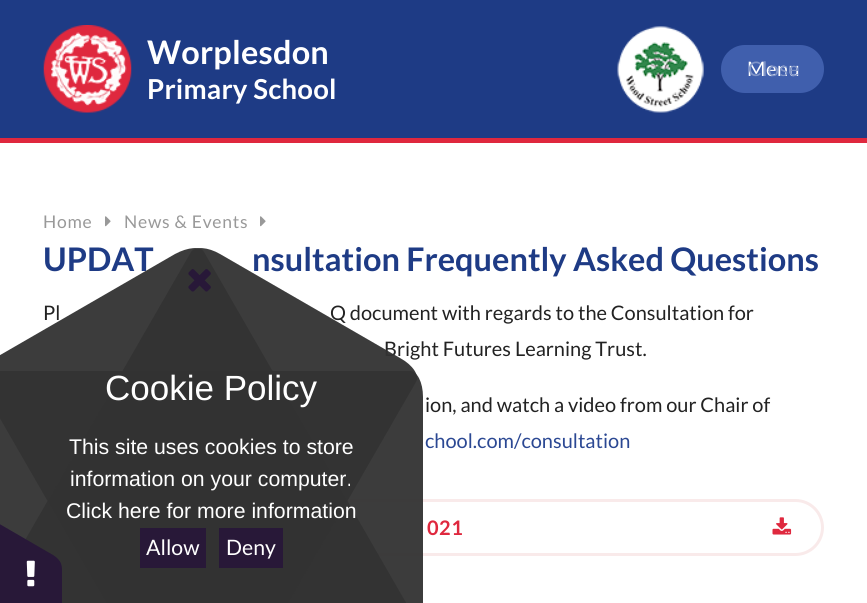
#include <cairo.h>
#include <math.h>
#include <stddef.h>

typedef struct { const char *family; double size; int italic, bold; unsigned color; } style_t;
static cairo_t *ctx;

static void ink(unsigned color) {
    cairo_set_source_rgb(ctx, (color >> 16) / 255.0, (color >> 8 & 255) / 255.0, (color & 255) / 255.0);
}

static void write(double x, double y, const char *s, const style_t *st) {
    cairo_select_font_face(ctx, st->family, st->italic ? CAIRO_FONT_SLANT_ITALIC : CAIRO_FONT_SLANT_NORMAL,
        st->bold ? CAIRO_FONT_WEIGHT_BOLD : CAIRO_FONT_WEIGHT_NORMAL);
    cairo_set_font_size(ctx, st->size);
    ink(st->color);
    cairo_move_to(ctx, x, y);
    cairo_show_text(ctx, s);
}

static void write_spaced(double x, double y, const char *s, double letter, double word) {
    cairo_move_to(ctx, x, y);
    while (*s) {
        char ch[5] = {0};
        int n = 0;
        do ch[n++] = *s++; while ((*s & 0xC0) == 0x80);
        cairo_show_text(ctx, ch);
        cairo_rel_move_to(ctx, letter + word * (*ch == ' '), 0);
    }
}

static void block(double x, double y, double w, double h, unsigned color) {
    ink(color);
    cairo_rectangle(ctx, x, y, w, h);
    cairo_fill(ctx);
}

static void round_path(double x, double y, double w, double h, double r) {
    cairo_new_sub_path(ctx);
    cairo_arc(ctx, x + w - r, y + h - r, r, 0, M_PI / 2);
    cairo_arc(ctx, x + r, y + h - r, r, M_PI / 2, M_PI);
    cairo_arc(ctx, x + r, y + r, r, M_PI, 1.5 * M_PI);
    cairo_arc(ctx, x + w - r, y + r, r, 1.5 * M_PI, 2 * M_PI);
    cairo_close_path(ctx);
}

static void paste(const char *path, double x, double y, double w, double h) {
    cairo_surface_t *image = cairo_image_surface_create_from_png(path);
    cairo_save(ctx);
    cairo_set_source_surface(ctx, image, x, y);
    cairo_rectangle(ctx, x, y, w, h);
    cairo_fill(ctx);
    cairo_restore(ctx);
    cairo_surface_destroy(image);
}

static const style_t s1 = {"Lato", 32.5, 0, 1, 0x1e3b85};
static const style_t s2 = {"Lato", 20, 0, 0, 0x222222};
static const style_t s3 = {"Lato", 20, 0, 0, 0x2b4893};
static const style_t s4 = {"Liberation Sans", 35, 0, 0, 0xffffff};
static const style_t s5 = {"Liberation Sans", 21.25, 0, 0, 0xffffff};
static const style_t s6 = {"Lato", 21.25, 0, 0, 0xffffff};

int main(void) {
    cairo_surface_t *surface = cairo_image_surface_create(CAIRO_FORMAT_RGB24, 867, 603);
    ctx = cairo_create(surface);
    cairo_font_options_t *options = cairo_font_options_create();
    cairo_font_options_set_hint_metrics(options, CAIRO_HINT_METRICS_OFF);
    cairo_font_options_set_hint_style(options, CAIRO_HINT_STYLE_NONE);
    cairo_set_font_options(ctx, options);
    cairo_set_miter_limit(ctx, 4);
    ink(0xffffff);
    cairo_paint(ctx);
    block(0, 0, 867, 138, 0x1e3b85);
    block(0, 138, 867, 5, 0xdf283e);
    paste("pic1.png", 43, 25, 89, 88);
    cairo_select_font_face(ctx, "Lato", CAIRO_FONT_SLANT_NORMAL, CAIRO_FONT_WEIGHT_BOLD);
    cairo_set_font_size(ctx, 32.5);
    ink(0xffffff);
    write_spaced(147, 64, "Worplesdon", 0.2, 0);
    cairo_set_font_size(ctx, 27.5);
    write_spaced(147, 99, "Primary School", 0.2, 0);
    paste("pic2.png", 617, 26, 87, 87);
    ink(0x405fad);
    round_path(721, 45, 103, 48, 24);
    cairo_fill(ctx);
    cairo_select_font_face(ctx, "Lato", CAIRO_FONT_SLANT_NORMAL, CAIRO_FONT_WEIGHT_NORMAL);
    cairo_set_font_size(ctx, 20);
    ink(0xffffff);
    write_spaced(747, 76, "Menu", 0.5, 0);
    ink(0x8095c8);
    write_spaced(748, 76, "Close", 0.5, 0);
    cairo_set_font_size(ctx, 17.5);
    ink(0x999999);
    write_spaced(43, 228, "Home", 0.75, 0);
    paste("pic3.png", 105, 216, 6, 11);
    write_spaced(124, 228, "News & Events", 0.75, 0);
    paste("pic3.png", 260, 216, 6, 11);
    write(43, 271, "UPDAT", &s1);
    write(252, 271, "nsultation Frequently Asked Questions", &s1);
    write(43, 320, "Pl", &s2);
    write(330, 320, "Q document with regards to the Consultation for", &s2);
    write(384, 356, "Bright Futures Learning Trust.", &s2);
    write(425, 412, "ion, and watch a video from our Chair of", &s2);
    write(425, 448, "chool.com/consultation", &s3);
    round_path(45.5, 500.5, 777, 54, 27);
    ink(0xf9eaea);
    cairo_set_line_width(ctx, 3);
    cairo_stroke(ctx);
    cairo_select_font_face(ctx, "Lato", CAIRO_FONT_SLANT_NORMAL, CAIRO_FONT_WEIGHT_BOLD);
    ink(0xdf283e);
    write_spaced(427, 535, "021", 0.5, 0);
    paste("pic4.png", 772, 517, 20, 18);
    cairo_set_source_rgba(ctx, 0.2, 0.2, 0.2, 0.95);
    cairo_new_path(ctx);
    cairo_move_to(ctx, 423, 397);
    cairo_line_to(ctx, 423, 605);
    cairo_curve_to(ctx, 423, 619, 417, 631, 410, 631);
    cairo_line_to(ctx, -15, 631);
    cairo_curve_to(ctx, -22, 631, -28, 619, -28, 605);
    cairo_line_to(ctx, -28, 397);
    cairo_curve_to(ctx, -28, 382, -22, 371, -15, 371);
    cairo_line_to(ctx, 410, 371);
    cairo_curve_to(ctx, 417, 371, 423, 382, 423, 397);
    cairo_close_path(ctx);
    cairo_fill(ctx);
    cairo_new_path(ctx);
    cairo_move_to(ctx, 400, 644);
    cairo_line_to(ctx, 220, 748);
    cairo_curve_to(ctx, 208, 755, 195, 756, 191, 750);
    cairo_line_to(ctx, -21, 382);
    cairo_curve_to(ctx, -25, 376, -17, 365, -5, 358);
    cairo_line_to(ctx, 175, 254);
    cairo_curve_to(ctx, 188, 247, 201, 246, 204, 252);
    cairo_line_to(ctx, 416, 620);
    cairo_curve_to(ctx, 420, 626, 413, 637, 400, 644);
    cairo_close_path(ctx);
    cairo_fill(ctx);
    cairo_new_path(ctx);
    cairo_move_to(ctx, 220, 254);
    cairo_line_to(ctx, 400, 358);
    cairo_curve_to(ctx, 413, 365, 420, 376, 416, 382);
    cairo_line_to(ctx, 204, 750);
    cairo_curve_to(ctx, 201, 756, 188, 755, 175, 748);
    cairo_line_to(ctx, -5, 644);
    cairo_curve_to(ctx, -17, 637, -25, 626, -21, 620);
    cairo_line_to(ctx, 191, 252);
    cairo_curve_to(ctx, 195, 246, 208, 247, 220, 254);
    cairo_close_path(ctx);
    cairo_fill(ctx);
    ink(0x281838);
    cairo_new_path(ctx);
    cairo_move_to(ctx, 62, 570);
    cairo_line_to(ctx, 62, 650);
    cairo_curve_to(ctx, 62, 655, 60, 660, 57, 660);
    cairo_line_to(ctx, -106, 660);
    cairo_curve_to(ctx, -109, 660, -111, 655, -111, 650);
    cairo_line_to(ctx, -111, 570);
    cairo_curve_to(ctx, -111, 564, -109, 560, -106, 560);
    cairo_line_to(ctx, 57, 560);
    cairo_curve_to(ctx, 60, 560, 62, 564, 62, 570);
    cairo_close_path(ctx);
    cairo_fill(ctx);
    cairo_new_path(ctx);
    cairo_move_to(ctx, -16, 515);
    cairo_line_to(ctx, 53, 555);
    cairo_curve_to(ctx, 58, 558, 61, 562, 60, 564);
    cairo_line_to(ctx, -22, 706);
    cairo_curve_to(ctx, -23, 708, -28, 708, -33, 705);
    cairo_line_to(ctx, -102, 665);
    cairo_curve_to(ctx, -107, 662, -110, 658, -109, 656);
    cairo_line_to(ctx, -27, 514);
    cairo_curve_to(ctx, -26, 512, -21, 512, -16, 515);
    cairo_close_path(ctx);
    cairo_fill(ctx);
    paste("pic5.png", 26, 560, 9, 27);
    paste("pic6.png", 188, 269, 23, 23);
    write(105, 400, "Cookie Policy", &s4);
    write(69, 454, "This site uses cookies to store", &s5);
    write(70, 486, "information on your computer.", &s5);
    write(66, 518, "Click here for more information", &s5);
    block(140, 528, 66, 40, 0x281838);
    write(146, 555, "Allow", &s6);
    block(219, 528, 64, 40, 0x281838);
    write(226, 555, "Deny", &s6);
    cairo_surface_write_to_png(surface, "screenshot.png");
    cairo_font_options_destroy(options);
    cairo_destroy(ctx);
    cairo_surface_destroy(surface);
    return 0;
}
